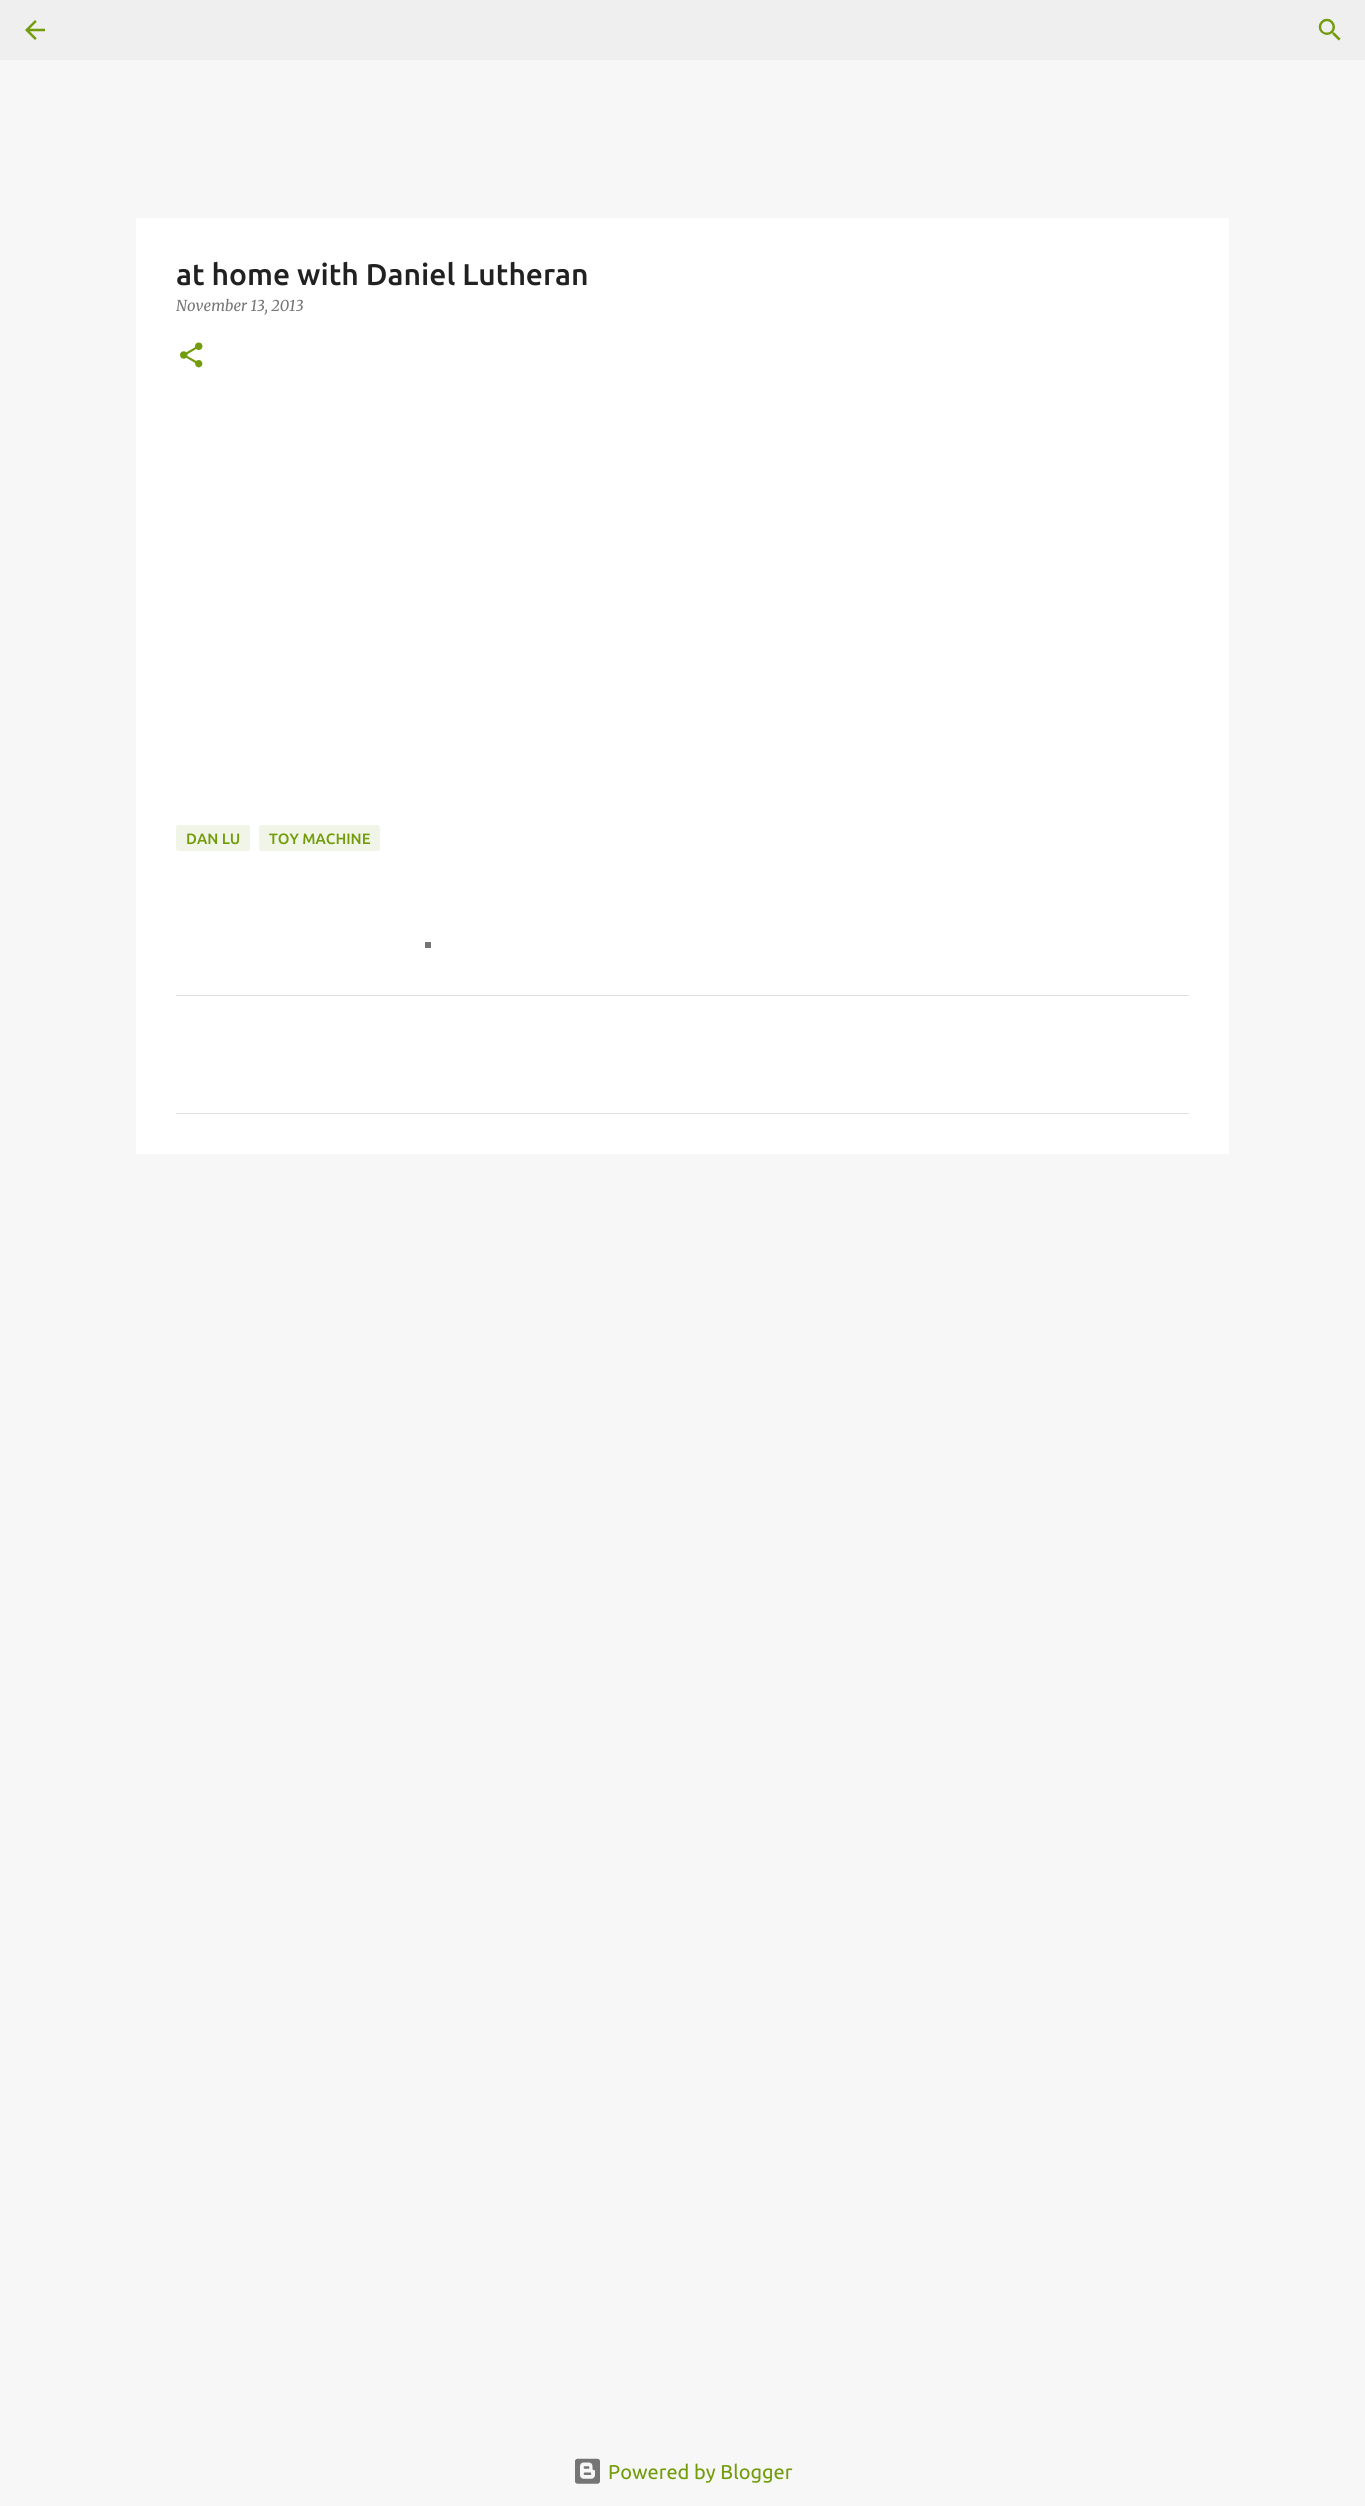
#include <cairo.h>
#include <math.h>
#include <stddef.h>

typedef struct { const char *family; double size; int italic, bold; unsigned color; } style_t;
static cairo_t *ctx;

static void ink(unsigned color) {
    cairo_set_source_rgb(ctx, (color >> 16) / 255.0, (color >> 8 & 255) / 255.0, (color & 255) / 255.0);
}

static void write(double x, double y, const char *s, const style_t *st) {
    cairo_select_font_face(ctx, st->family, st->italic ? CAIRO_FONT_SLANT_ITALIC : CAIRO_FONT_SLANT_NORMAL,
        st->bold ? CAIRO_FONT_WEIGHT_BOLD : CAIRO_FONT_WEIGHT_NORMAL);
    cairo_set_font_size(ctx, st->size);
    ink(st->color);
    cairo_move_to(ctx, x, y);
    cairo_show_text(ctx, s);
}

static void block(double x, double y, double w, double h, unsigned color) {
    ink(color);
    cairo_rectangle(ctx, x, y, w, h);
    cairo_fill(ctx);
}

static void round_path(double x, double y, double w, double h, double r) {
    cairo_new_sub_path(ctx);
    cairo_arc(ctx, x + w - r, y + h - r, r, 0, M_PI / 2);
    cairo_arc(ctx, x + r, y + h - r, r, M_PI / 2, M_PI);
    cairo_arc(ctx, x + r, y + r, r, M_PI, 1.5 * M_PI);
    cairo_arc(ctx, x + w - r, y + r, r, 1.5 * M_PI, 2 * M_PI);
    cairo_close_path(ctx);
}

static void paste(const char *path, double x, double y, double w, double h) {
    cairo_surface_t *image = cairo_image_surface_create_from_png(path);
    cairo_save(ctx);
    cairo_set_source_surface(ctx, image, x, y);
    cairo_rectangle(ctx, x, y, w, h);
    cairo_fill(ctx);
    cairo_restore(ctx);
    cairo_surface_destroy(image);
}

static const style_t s1 = {"Ubuntu Medium", 30, 0, 0, 0x212121};
static const style_t s2 = {"Merriweather", 15, 1, 0, 0x757575};
static const style_t s3 = {"Ubuntu Medium", 15, 0, 0, 0x729c0b};
static const style_t s4 = {"Ubuntu", 20, 0, 0, 0x729c0b};

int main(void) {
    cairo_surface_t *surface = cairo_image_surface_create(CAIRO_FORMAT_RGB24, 1365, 2506);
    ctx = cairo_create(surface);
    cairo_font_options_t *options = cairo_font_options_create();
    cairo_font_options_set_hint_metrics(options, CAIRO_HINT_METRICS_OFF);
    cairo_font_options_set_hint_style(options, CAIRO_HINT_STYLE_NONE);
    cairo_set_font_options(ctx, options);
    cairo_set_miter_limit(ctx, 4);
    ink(0xf7f7f7);
    cairo_paint(ctx);
    block(0, 0, 1365, 60, 0xefefef);
    paste("pic1.png", 25, 20, 20, 20);
    paste("pic2.png", 1318, 18, 23, 23);
    block(136, 218, 1093, 936, 0xffffff);
    block(176, 995, 1013, 1, 0xe0e0e0);
    block(176, 1113, 1013, 1, 0xe0e0e0);
    write(176, 285, "at home with Daniel Lutheran", &s1);
    write(176, 311, "November 13, 2013", &s2);
    paste("pic3.png", 180, 342, 23, 26);
    ink(0xf1f5e7);
    round_path(176, 825, 74, 26, 2.5);
    cairo_fill(ctx);
    write(186, 844, "DAN LU", &s3);
    ink(0xf1f5e7);
    round_path(259, 825, 121, 26, 2.5);
    cairo_fill(ctx);
    write(269, 844, "TOY MACHINE", &s3);
    paste("pic4.png", 575, 2458, 25, 26);
    write(608, 2479, "Powered by Blogger", &s4);
    block(425, 942, 6, 6, 0x757575);
    cairo_surface_write_to_png(surface, "screenshot.png");
    cairo_font_options_destroy(options);
    cairo_destroy(ctx);
    cairo_surface_destroy(surface);
    return 0;
}
